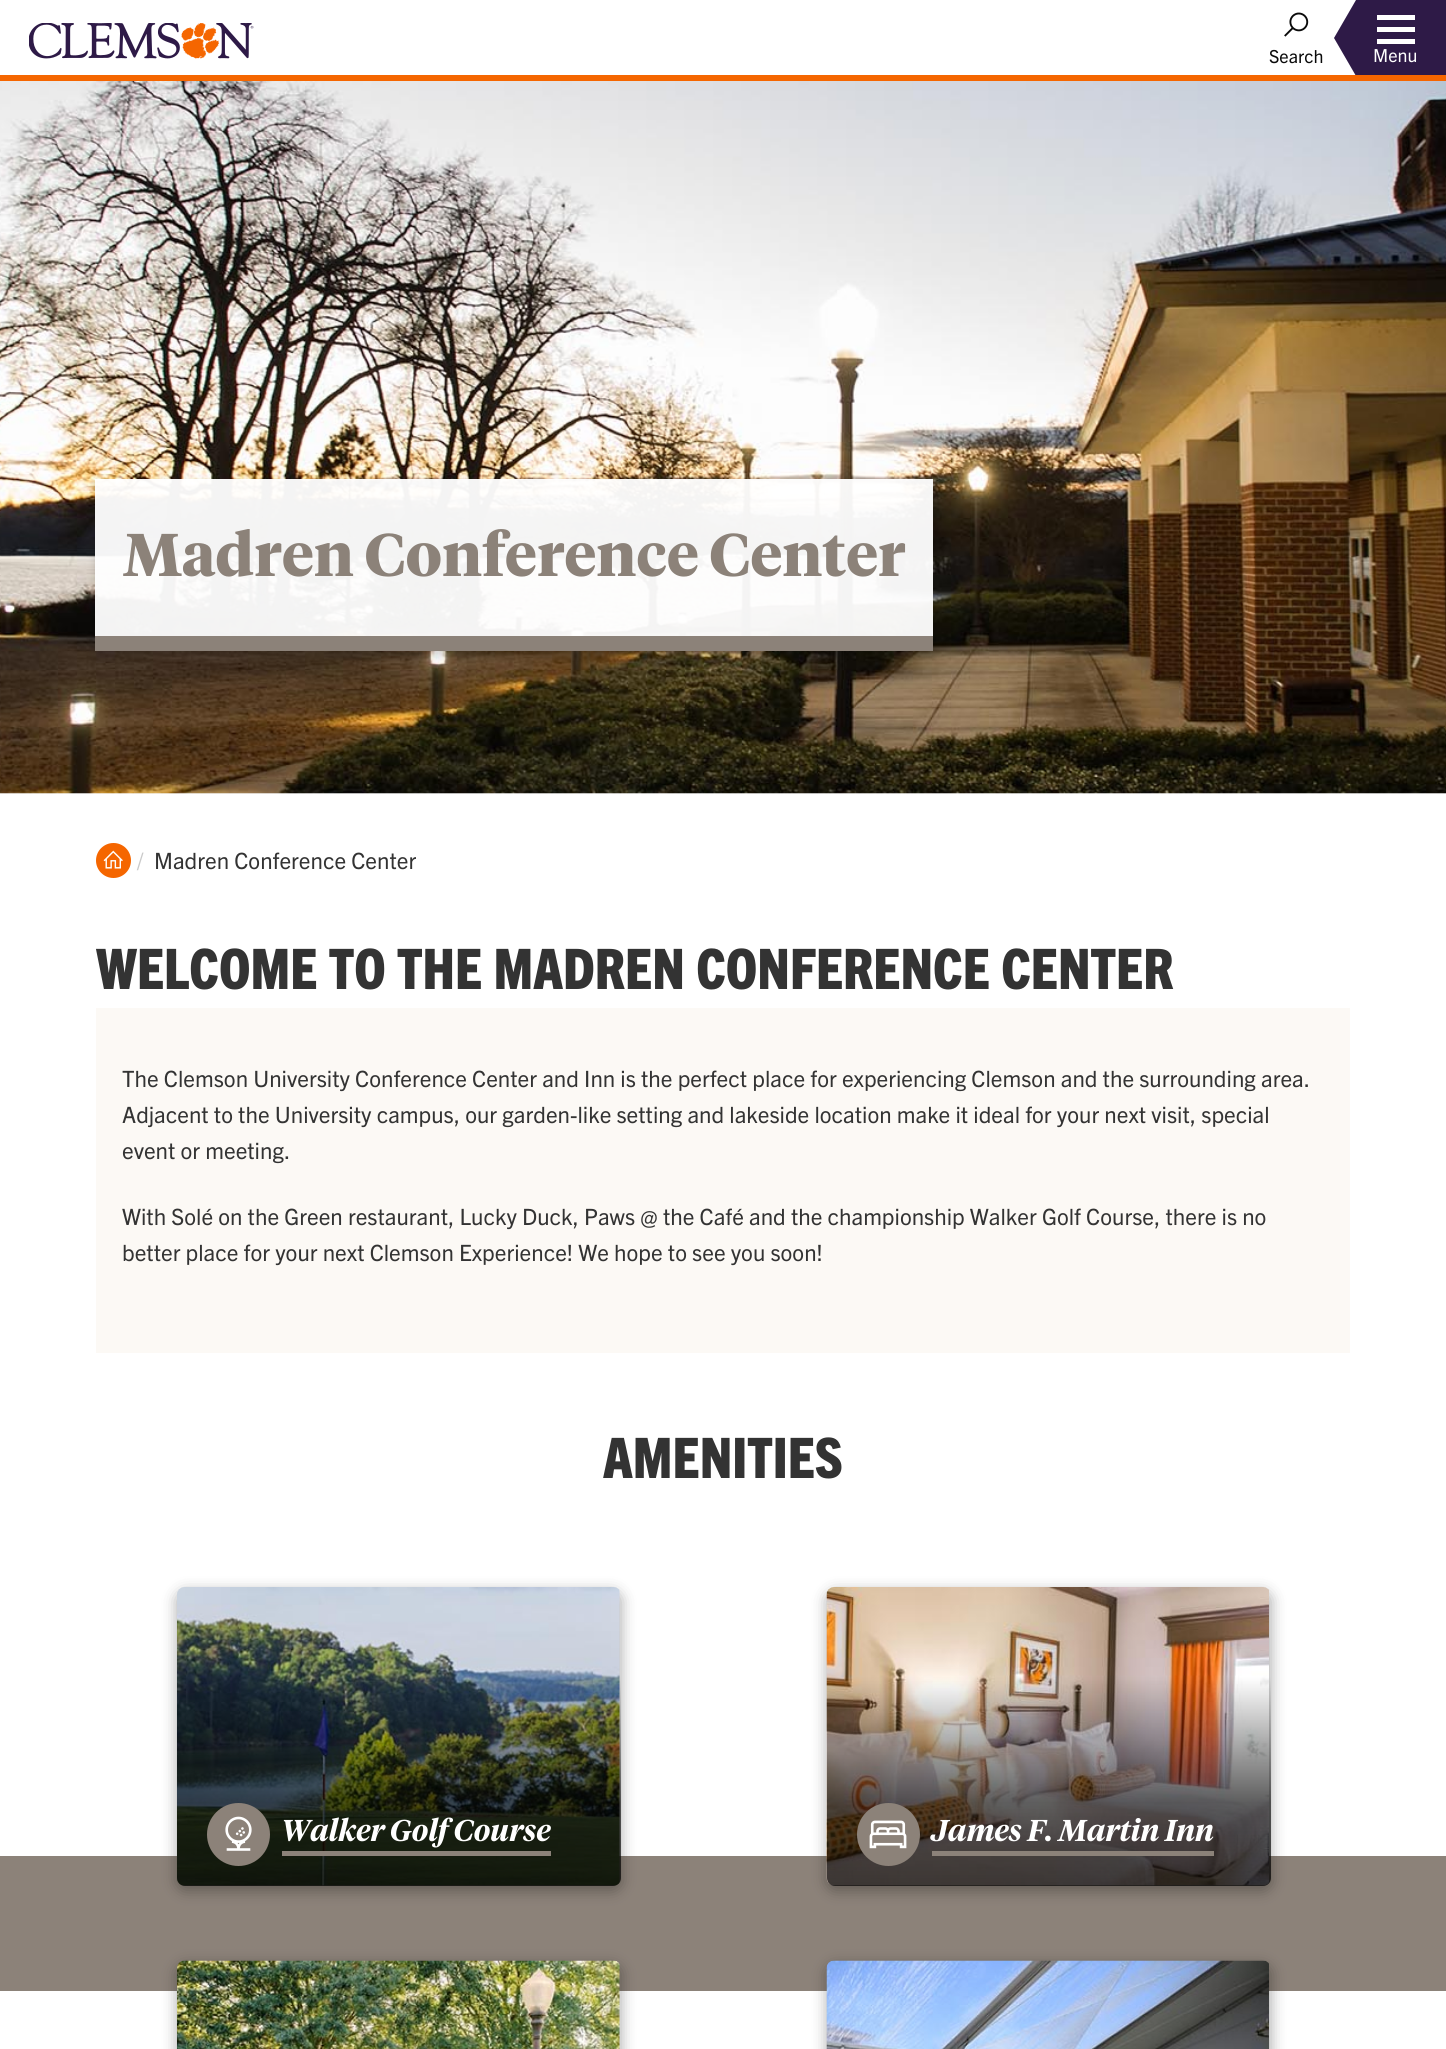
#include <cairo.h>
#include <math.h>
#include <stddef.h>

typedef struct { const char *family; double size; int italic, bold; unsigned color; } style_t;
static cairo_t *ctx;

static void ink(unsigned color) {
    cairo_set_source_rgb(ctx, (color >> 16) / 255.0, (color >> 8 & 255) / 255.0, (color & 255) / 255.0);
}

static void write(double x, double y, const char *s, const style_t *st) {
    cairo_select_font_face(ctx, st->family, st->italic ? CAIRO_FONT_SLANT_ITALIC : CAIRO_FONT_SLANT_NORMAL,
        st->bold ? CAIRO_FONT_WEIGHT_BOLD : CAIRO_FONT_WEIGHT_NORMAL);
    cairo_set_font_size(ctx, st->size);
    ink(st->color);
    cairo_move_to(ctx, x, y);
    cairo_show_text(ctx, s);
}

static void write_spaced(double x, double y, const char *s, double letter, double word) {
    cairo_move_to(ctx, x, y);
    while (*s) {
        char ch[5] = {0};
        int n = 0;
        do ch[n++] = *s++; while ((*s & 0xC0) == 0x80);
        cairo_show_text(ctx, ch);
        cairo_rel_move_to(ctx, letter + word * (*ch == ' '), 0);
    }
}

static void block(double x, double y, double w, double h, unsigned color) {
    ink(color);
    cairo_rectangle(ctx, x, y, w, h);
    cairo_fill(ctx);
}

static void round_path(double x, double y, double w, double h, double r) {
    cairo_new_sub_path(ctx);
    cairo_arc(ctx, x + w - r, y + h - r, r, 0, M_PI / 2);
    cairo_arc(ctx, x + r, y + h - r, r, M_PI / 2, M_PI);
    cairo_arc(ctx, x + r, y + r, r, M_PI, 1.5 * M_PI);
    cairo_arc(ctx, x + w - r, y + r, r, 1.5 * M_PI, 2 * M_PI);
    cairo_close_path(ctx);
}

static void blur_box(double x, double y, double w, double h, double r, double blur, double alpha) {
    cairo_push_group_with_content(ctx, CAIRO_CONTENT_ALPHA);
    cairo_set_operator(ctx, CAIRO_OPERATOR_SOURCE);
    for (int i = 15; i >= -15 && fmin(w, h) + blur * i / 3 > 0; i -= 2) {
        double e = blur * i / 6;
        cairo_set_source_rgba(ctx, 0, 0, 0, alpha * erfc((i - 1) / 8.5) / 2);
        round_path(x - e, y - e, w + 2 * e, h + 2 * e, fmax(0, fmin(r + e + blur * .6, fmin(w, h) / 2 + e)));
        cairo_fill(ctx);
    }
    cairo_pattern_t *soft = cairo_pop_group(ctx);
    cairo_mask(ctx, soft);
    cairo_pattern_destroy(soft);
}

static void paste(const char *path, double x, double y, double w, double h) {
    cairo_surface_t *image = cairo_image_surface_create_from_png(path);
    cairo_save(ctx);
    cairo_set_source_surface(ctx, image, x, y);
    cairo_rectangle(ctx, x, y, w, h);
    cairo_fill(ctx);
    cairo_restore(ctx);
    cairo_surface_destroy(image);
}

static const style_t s1 = {"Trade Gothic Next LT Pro", 18, 0, 0, 0x0a0a0a};
static const style_t s2 = {"Trade Gothic Next LT Pro", 18, 0, 0, 0xffffff};
static const style_t s3 = {"Trade Gothic Next LT Pro", 22.5, 0, 0, 0xcacaca};
static const style_t s4 = {"Trade Gothic Next LT Pro", 22.5, 0, 0, 0x333333};
static const style_t s5 = {"Trade Gothic Next LT Pro ExtraBold", 55.9, 0, 0, 0x333333};
static const style_t s6 = {"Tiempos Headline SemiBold", 30, 1, 0, 0xffffff};

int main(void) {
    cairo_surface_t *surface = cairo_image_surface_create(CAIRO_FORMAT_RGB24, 1446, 2049);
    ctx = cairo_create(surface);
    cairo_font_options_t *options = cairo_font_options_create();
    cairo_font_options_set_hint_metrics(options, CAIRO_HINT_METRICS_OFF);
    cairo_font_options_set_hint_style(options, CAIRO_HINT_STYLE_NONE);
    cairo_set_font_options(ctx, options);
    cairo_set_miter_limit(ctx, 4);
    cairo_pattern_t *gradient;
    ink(0xffffff);
    cairo_paint(ctx);
    block(0, 75, 1446, 6, 0xf56600);
    paste("pic1.png", 29, 23, 225, 36);
    paste("pic2.png", 1284, 12, 25, 25);
    write(1269, 63, "Search", &s1);
    cairo_save(ctx);
    cairo_rectangle(ctx, 1334, 0, 112, 75);
    cairo_clip(ctx);
    ink(0x2e1a47);
    cairo_new_path(ctx);
    cairo_move_to(ctx, 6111, 0);
    cairo_line_to(ctx, 1356, 0);
    cairo_line_to(ctx, 1334, 38);
    cairo_line_to(ctx, 1356, 76);
    cairo_line_to(ctx, 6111, 76);
    cairo_line_to(ctx, 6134, 38);
    cairo_close_path(ctx);
    cairo_fill(ctx);
    cairo_restore(ctx);
    block(1377, 15, 38, 5, 0xffffff);
    block(1377, 27, 38, 5, 0xffffff);
    block(1377, 39, 38, 5, 0xffffff);
    write(1373, 62, "Menu", &s2);
    block(0, 793, 1446, 1, 0xf7f7f7);
    paste("pic3.png", 0, 81, 1446, 713);
    cairo_save(ctx);
    cairo_set_fill_rule(ctx, CAIRO_FILL_RULE_EVEN_ODD);
    cairo_new_path(ctx);
    cairo_move_to(ctx, 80, 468);
    cairo_line_to(ctx, 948, 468);
    cairo_line_to(ctx, 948, 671);
    cairo_line_to(ctx, 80, 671);
    cairo_close_path(ctx);
    cairo_move_to(ctx, 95, 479);
    cairo_line_to(ctx, 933, 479);
    cairo_line_to(ctx, 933, 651);
    cairo_line_to(ctx, 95, 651);
    cairo_close_path(ctx);
    cairo_clip(ctx);
    ink(0x000000);
    blur_box(95, 483, 838, 173, 0, 4.5, 0.16);
    cairo_restore(ctx);
    cairo_set_source_rgba(ctx, 1, 1, 1, 0.95);
    cairo_rectangle(ctx, 95, 479, 838, 157);
    cairo_fill(ctx);
    block(95, 636, 838, 15, 0x8c8279);
    cairo_select_font_face(ctx, "Tiempos Headline", CAIRO_FONT_SLANT_NORMAL, CAIRO_FONT_WEIGHT_BOLD);
    cairo_set_font_size(ctx, 60);
    write_spaced(123, 576, "Madren Conference Center", 0.25, 0);
    ink(0xf56600);
    cairo_new_path(ctx);
    cairo_arc(ctx, 113.5, 860.5, 17.5, 0, 2 * M_PI);
    cairo_fill(ctx);
    paste("pic4.png", 103, 850, 20, 19);
    write(137, 869, "/", &s3);
    write(154, 869, "Madren Conference Center", &s4);
    write(96, 989, "WELCOME TO THE MADREN CONFERENCE CENTER", &s5);
    block(96, 1008, 1254, 345, 0xfcf9f5);
    write(122, 1087, "The Clemson University Conference Center and Inn is the perfect place for experiencing Clemson and the surrounding area.", &s4);
    write(122, 1123, "Adjacent to the University campus, our garden-like setting and lakeside location make it ideal for your next visit, special", &s4);
    write(122, 1159, "event or meeting.", &s4);
    write(122, 1225, "With Solé on the Green restaurant, Lucky Duck, Paws @ the Café and the championship Walker Golf Course, there is no", &s4);
    write(122, 1261, "better place for your next Clemson Experience! We hope to see you soon!", &s4);
    write(603, 1478, "AMENITIES", &s5);
    block(0, 1856, 1446, 135, 0x8c8279);
    ink(0x000000);
    blur_box(177, 1592, 444, 298, 8, 7.5, 0.33);
    paste("pic5.png", 177, 1587, 443, 299);
    gradient = cairo_pattern_create_linear(399, 1677, 399, 1886);
    cairo_pattern_add_color_stop_rgba(gradient, 0, 0, 0, 0, 0);
    cairo_pattern_add_color_stop_rgba(gradient, 0.6, 0, 0, 0, 0.63);
    cairo_pattern_add_color_stop_rgba(gradient, 1, 0, 0, 0, 0.72);
    cairo_set_source(ctx, gradient);
    cairo_pattern_destroy(gradient);
    cairo_new_path(ctx);
    cairo_move_to(ctx, 177, 1677);
    cairo_line_to(ctx, 621, 1677);
    cairo_line_to(ctx, 621, 1878);
    cairo_curve_to(ctx, 621, 1882.5, 617.5, 1886, 613, 1886);
    cairo_line_to(ctx, 185, 1886);
    cairo_curve_to(ctx, 180.5, 1886, 177, 1882.5, 177, 1878);
    cairo_close_path(ctx);
    cairo_fill(ctx);
    ink(0x8c8279);
    cairo_arc(ctx, 238.5, 1834.5, 31.5, 0, 2 * M_PI);
    cairo_fill(ctx);
    paste("pic6.png", 225, 1816, 27, 35);
    write(281, 1841, "Walker Golf Course", &s6);
    block(282, 1851, 269, 5, 0x8c8279);
    ink(0x000000);
    blur_box(827, 1592, 444, 298, 8, 7.5, 0.33);
    paste("pic7.png", 826, 1587, 443, 299);
    gradient = cairo_pattern_create_linear(1049, 1677, 1049, 1886);
    cairo_pattern_add_color_stop_rgba(gradient, 0, 0, 0, 0, 0);
    cairo_pattern_add_color_stop_rgba(gradient, 0.6, 0, 0, 0, 0.63);
    cairo_pattern_add_color_stop_rgba(gradient, 1, 0, 0, 0, 0.72);
    cairo_set_source(ctx, gradient);
    cairo_pattern_destroy(gradient);
    cairo_new_path(ctx);
    cairo_move_to(ctx, 827, 1677);
    cairo_line_to(ctx, 1271, 1677);
    cairo_line_to(ctx, 1271, 1878);
    cairo_curve_to(ctx, 1271, 1882.5, 1267.5, 1886, 1263, 1886);
    cairo_line_to(ctx, 835, 1886);
    cairo_curve_to(ctx, 830.5, 1886, 827, 1882.5, 827, 1878);
    cairo_close_path(ctx);
    cairo_fill(ctx);
    ink(0x8c8279);
    cairo_arc(ctx, 888.5, 1834.5, 31.5, 0, 2 * M_PI);
    cairo_fill(ctx);
    paste("pic8.png", 869, 1820, 38, 29);
    write(931, 1841, "James F. Martin Inn", &s6);
    block(932, 1851, 282, 5, 0x8c8279);
    ink(0x000000);
    blur_box(177, 1965, 444, 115, 8, 7.5, 0.33);
    paste("pic9.png", 177, 1960, 443, 89);
    blur_box(827, 1965, 444, 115, 8, 7.5, 0.33);
    paste("pic10.png", 826, 1960, 443, 89);
    cairo_surface_write_to_png(surface, "screenshot.png");
    cairo_font_options_destroy(options);
    cairo_destroy(ctx);
    cairo_surface_destroy(surface);
    return 0;
}
